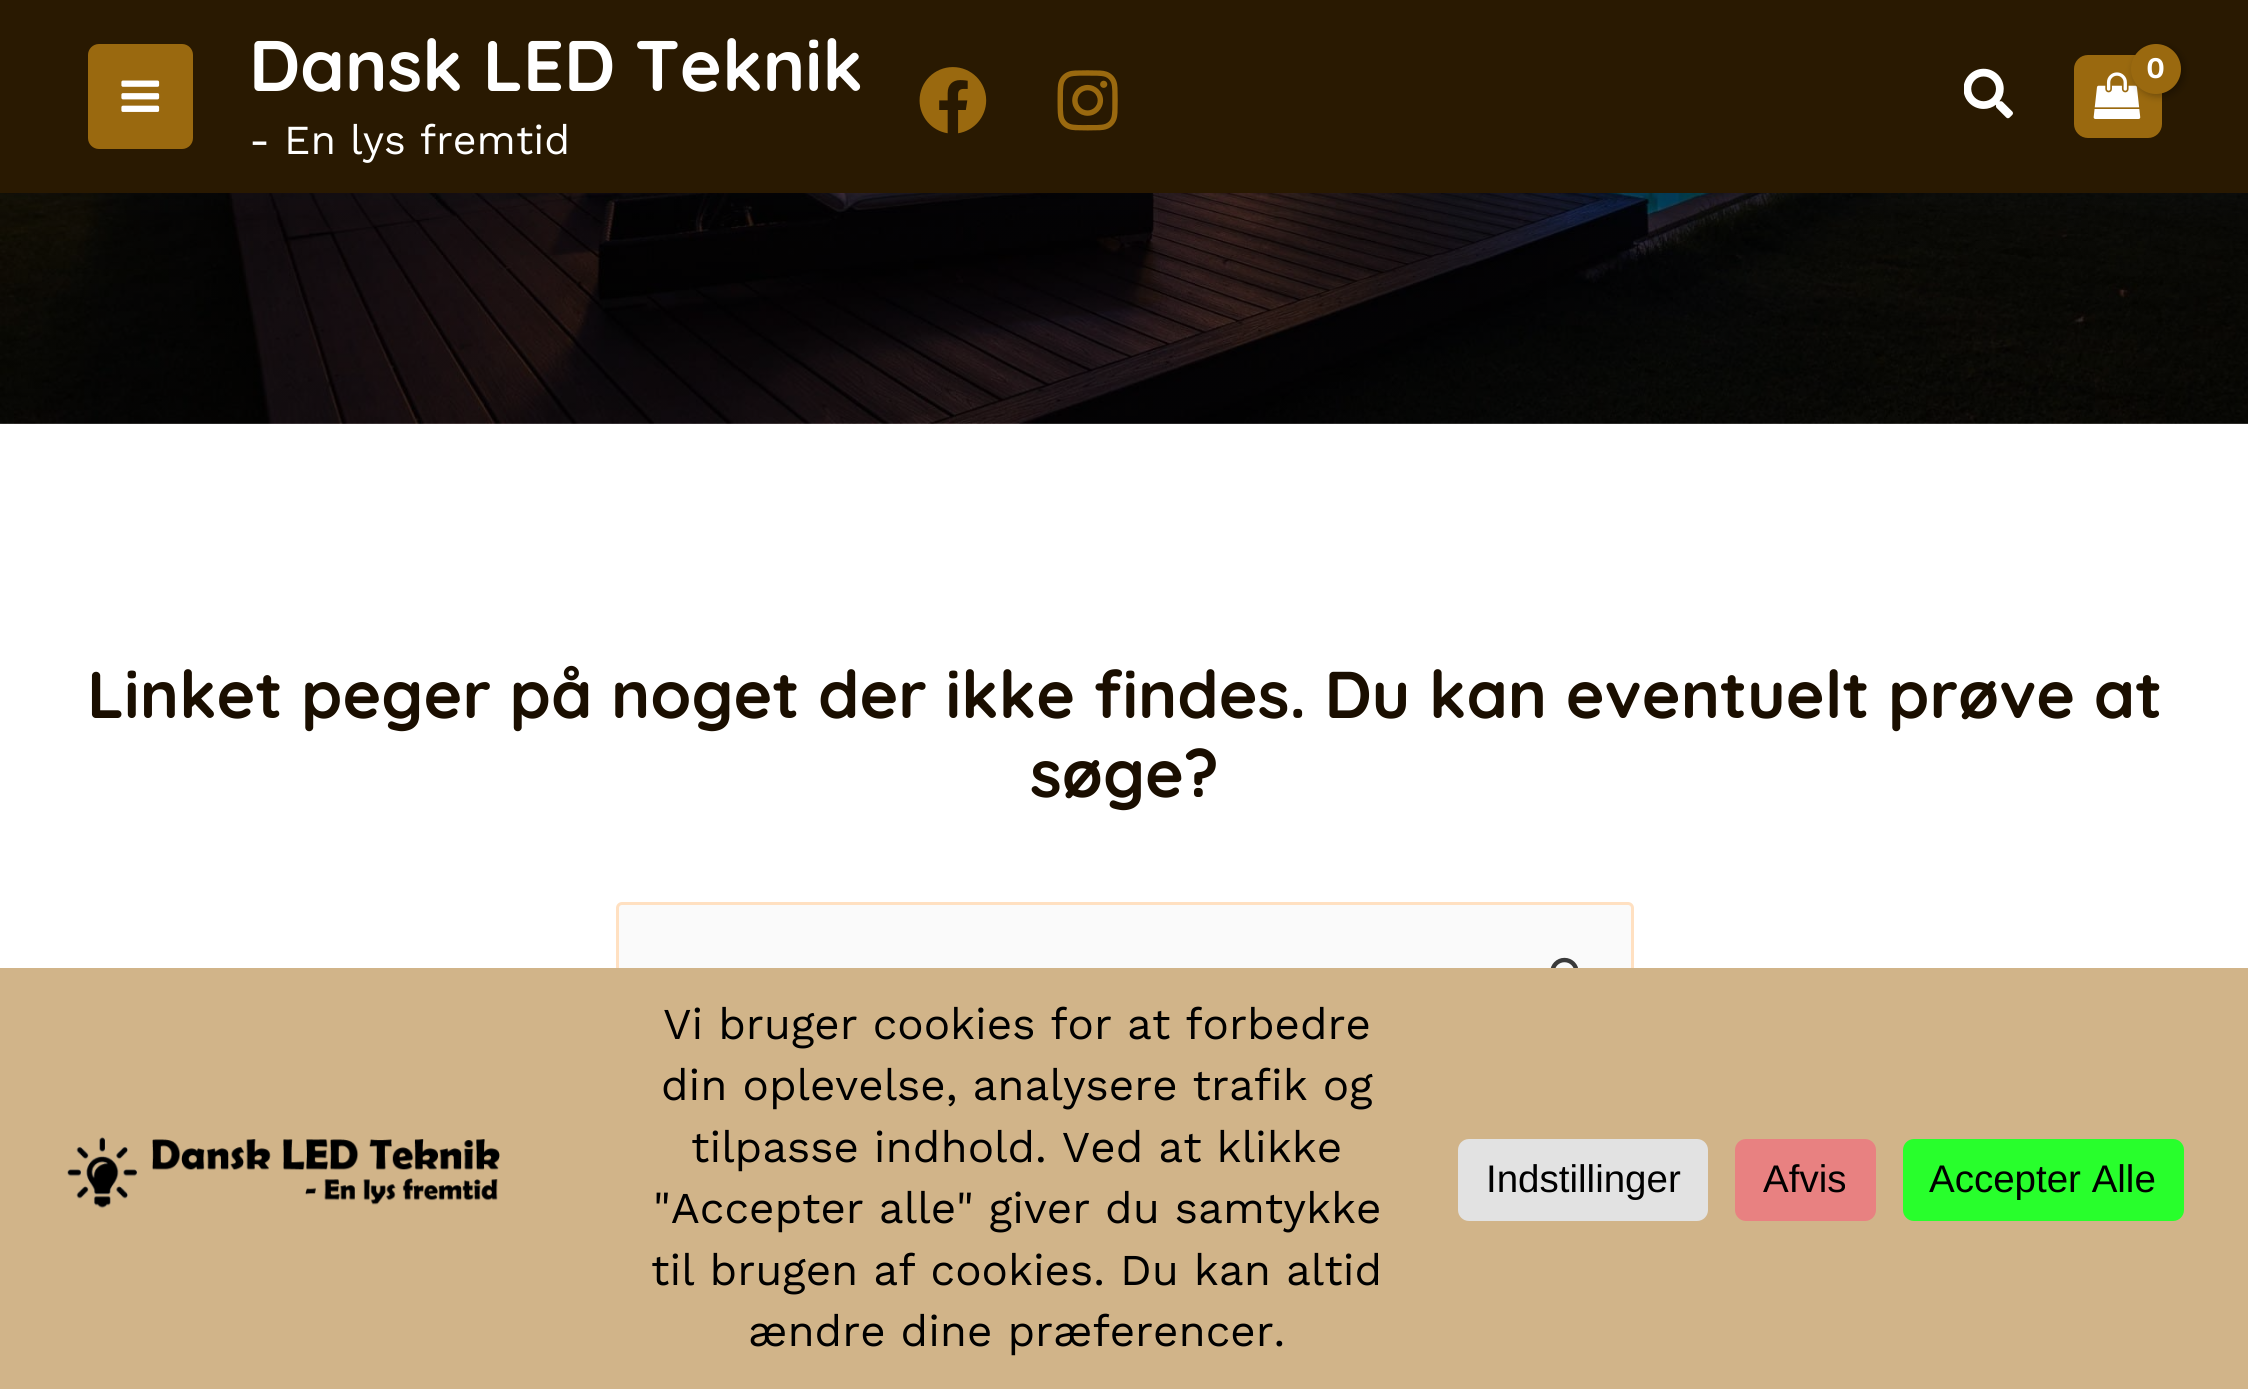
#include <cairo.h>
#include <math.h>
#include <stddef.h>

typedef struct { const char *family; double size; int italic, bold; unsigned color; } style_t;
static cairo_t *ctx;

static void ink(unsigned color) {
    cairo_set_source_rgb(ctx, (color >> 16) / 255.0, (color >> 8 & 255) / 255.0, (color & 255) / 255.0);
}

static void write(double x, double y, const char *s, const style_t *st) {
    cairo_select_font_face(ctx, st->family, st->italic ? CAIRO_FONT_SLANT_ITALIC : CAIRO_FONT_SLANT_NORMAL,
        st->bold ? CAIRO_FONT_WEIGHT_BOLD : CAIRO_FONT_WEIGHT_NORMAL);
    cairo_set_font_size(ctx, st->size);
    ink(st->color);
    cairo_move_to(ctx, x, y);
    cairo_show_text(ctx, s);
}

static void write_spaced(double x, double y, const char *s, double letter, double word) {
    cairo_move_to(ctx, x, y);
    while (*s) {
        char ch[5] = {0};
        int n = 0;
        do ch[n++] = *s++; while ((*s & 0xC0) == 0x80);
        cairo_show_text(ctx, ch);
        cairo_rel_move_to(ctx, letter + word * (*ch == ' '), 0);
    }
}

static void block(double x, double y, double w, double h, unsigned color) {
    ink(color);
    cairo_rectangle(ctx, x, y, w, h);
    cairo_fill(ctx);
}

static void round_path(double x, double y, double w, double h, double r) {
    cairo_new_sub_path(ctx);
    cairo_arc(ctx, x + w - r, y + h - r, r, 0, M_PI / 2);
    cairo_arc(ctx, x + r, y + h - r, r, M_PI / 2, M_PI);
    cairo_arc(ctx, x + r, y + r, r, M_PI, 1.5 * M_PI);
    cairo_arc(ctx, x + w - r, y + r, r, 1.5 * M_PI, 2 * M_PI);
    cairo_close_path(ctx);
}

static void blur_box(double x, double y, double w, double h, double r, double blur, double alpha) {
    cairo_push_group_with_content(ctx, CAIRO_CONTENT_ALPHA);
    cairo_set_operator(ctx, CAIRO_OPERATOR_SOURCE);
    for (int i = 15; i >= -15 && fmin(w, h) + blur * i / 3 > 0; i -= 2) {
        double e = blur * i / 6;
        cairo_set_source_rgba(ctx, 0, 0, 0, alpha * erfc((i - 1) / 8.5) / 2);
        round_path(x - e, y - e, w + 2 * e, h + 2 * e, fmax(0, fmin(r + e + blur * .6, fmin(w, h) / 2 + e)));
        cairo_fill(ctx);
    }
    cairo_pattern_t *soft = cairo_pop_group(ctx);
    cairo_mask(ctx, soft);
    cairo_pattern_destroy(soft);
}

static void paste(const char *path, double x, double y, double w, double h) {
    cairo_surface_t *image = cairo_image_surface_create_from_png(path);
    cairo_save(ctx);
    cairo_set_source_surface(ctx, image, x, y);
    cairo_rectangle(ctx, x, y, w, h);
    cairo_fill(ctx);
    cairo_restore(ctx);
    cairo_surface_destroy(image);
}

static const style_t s1 = {"Quicksand Light", 71.5, 0, 0, 0xffffff};
static const style_t s2 = {"Work Sans", 41.25, 0, 0, 0xffffff};
static const style_t s3 = {"Quicksand Light", 66, 0, 0, 0x1a0e00};
static const style_t s4 = {"Work Sans", 44, 0, 0, 0x000000};
static const style_t s5 = {"Liberation Sans", 38.5, 0, 0, 0x000000};

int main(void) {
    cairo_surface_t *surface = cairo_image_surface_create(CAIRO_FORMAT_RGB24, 2248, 1389);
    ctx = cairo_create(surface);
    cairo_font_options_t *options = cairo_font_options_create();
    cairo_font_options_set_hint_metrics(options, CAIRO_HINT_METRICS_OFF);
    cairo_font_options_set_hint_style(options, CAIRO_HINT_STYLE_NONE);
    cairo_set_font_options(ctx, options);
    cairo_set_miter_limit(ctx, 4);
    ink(0xffffff);
    cairo_paint(ctx);
    paste("pic6.png", 0, 193, 2248, 231);
    ink(0x243242);
    blur_box(0, 6, 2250, 192, 0, 14, 0.07);
    block(0, 0, 2248, 193, 0x291901);
    ink(0x9a690f);
    round_path(88, 44, 105, 105, 11);
    cairo_fill(ctx);
    paste("pic1.png", 121, 80, 39, 32);
    write(249, 91, "Dansk LED Teknik", &s1);
    write(249, 154, "- En lys fremtid", &s2);
    paste("pic2.png", 919, 67, 68, 67);
    paste("pic3.png", 1057, 70, 61, 61);
    paste("pic4.png", 1964, 68, 49, 51);
    ink(0x9a690f);
    round_path(2074, 55, 88, 83, 14);
    cairo_fill(ctx);
    paste("pic5.png", 2093, 72, 48, 47);
    ink(0x000000);
    blur_box(2134, 47, 50, 49, 24.5, 4, 0.3);
    ink(0x9a690f);
    cairo_arc(ctx, 2156, 69, 25, 0, 2 * M_PI);
    cairo_fill(ctx);
    cairo_select_font_face(ctx, "Work Sans SemiBold", CAIRO_FONT_SLANT_NORMAL, CAIRO_FONT_WEIGHT_NORMAL);
    cairo_set_font_size(ctx, 30);
    ink(0xffffff);
    write_spaced(2146, 78, "0", -1, 0);
    write(87, 718, "Linket peger på noget der ikke findes. Du kan eventuelt prøve at", &s3);
    write(1030, 797, "søge?", &s3);
    ink(0xfafafa);
    round_path(617.5, 903.5, 1015, 137, 4.5);
    cairo_fill_preserve(ctx);
    ink(0xffe0c1);
    cairo_set_line_width(ctx, 3);
    cairo_stroke(ctx);
    paste("pic7.png", 1550, 957, 28, 11);
    block(0, 968, 2248, 421, 0xd1b489);
    paste("pic8.png", 67, 1137, 433, 72);
    write(663, 1039, "Vi bruger cookies for at forbedre", &s4);
    write(661, 1100, "din oplevelse, analysere trafik og", &s4);
    write(691, 1162, "tilpasse indhold. Ved at klikke", &s4);
    write(653, 1223, "\"Accepter alle\" giver du samtykke", &s4);
    write(651, 1285, "til brugen af cookies. Du kan altid", &s4);
    write(748, 1346, "ændre dine præferencer.", &s4);
    ink(0xe2e2e2);
    round_path(1458, 1139, 250, 82, 11);
    cairo_fill(ctx);
    write(1486, 1192, "Indstillinger", &s5);
    ink(0xe88181);
    round_path(1735, 1139, 141, 82, 11);
    cairo_fill(ctx);
    write(1763, 1192, "Afvis", &s5);
    ink(0x28ff2c);
    round_path(1903, 1139, 281, 82, 11);
    cairo_fill(ctx);
    write(1929, 1192, "Accepter Alle", &s5);
    cairo_surface_write_to_png(surface, "screenshot.png");
    cairo_font_options_destroy(options);
    cairo_destroy(ctx);
    cairo_surface_destroy(surface);
    return 0;
}
